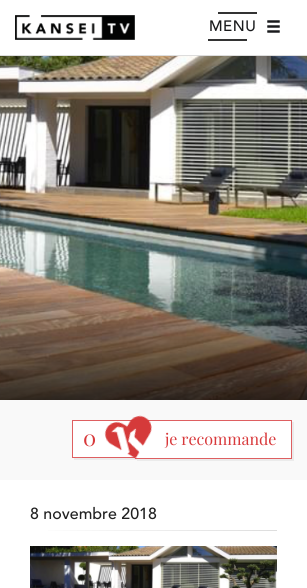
#include <cairo.h>
#include <math.h>
#include <stddef.h>

typedef struct { const char *family; double size; int italic, bold; unsigned color; } style_t;
static cairo_t *ctx;

static void ink(unsigned color) {
    cairo_set_source_rgb(ctx, (color >> 16) / 255.0, (color >> 8 & 255) / 255.0, (color & 255) / 255.0);
}

static void write(double x, double y, const char *s, const style_t *st) {
    cairo_select_font_face(ctx, st->family, st->italic ? CAIRO_FONT_SLANT_ITALIC : CAIRO_FONT_SLANT_NORMAL,
        st->bold ? CAIRO_FONT_WEIGHT_BOLD : CAIRO_FONT_WEIGHT_NORMAL);
    cairo_set_font_size(ctx, st->size);
    ink(st->color);
    cairo_move_to(ctx, x, y);
    cairo_show_text(ctx, s);
}

static void write_spaced(double x, double y, const char *s, double letter, double word) {
    cairo_move_to(ctx, x, y);
    while (*s) {
        char ch[5] = {0};
        int n = 0;
        do ch[n++] = *s++; while ((*s & 0xC0) == 0x80);
        cairo_show_text(ctx, ch);
        cairo_rel_move_to(ctx, letter + word * (*ch == ' '), 0);
    }
}

static void block(double x, double y, double w, double h, unsigned color) {
    ink(color);
    cairo_rectangle(ctx, x, y, w, h);
    cairo_fill(ctx);
}

static void paste(const char *path, double x, double y, double w, double h) {
    cairo_surface_t *image = cairo_image_surface_create_from_png(path);
    cairo_save(ctx);
    cairo_set_source_surface(ctx, image, x, y);
    cairo_rectangle(ctx, x, y, w, h);
    cairo_fill(ctx);
    cairo_restore(ctx);
    cairo_surface_destroy(image);
}

static const style_t s1 = {"Playfair Display", 22, 0, 0, 0xd8393b};
static const style_t s2 = {"Playfair Display", 16, 0, 0, 0xd8393b};
static const style_t s3 = {"Avenir Medium", 16, 0, 0, 0x212121};

int main(void) {
    cairo_surface_t *surface = cairo_image_surface_create(CAIRO_FORMAT_RGB24, 307, 588);
    ctx = cairo_create(surface);
    cairo_font_options_t *options = cairo_font_options_create();
    cairo_font_options_set_hint_metrics(options, CAIRO_HINT_METRICS_OFF);
    cairo_font_options_set_hint_style(options, CAIRO_HINT_STYLE_NONE);
    cairo_set_font_options(ctx, options);
    cairo_set_miter_limit(ctx, 4);
    cairo_pattern_t *gradient;
    ink(0xf9f9f9);
    cairo_paint(ctx);
    block(0, 0, 307, 55, 0xffffff);
    block(0, 55, 307, 1, 0xdddddd);
    paste("pic1.png", 15, 15, 120, 25);
    block(218, 12, 39, 2, 0x333333);
    cairo_select_font_face(ctx, "Avenir Medium", CAIRO_FONT_SLANT_NORMAL, CAIRO_FONT_WEIGHT_NORMAL);
    cairo_set_font_size(ctx, 15);
    ink(0x191a1c);
    write_spaced(209, 31, "MENU", 0.5, 0);
    paste("pic2.png", 267, 20, 13, 13);
    block(208, 39, 39, 2, 0x333333);
    paste("pic3.png", 0, 56, 307, 344);
    ink(0xebebeb);
    cairo_new_path(ctx);
    cairo_move_to(ctx, 74, 458);
    cairo_line_to(ctx, 74, 460);
    cairo_line_to(ctx, 137, 460);
    cairo_line_to(ctx, 137, 422);
    cairo_line_to(ctx, 135, 422);
    cairo_line_to(ctx, 135, 458);
    cairo_close_path(ctx);
    cairo_fill(ctx);
    block(73, 421, 62, 36, 0xffffff);
    block(72, 420, 63, 1, 0xde5f61);
    block(72, 457, 63, 1, 0xde5f61);
    block(72, 420, 1, 38, 0xde5f61);
    write(83, 446, "0", &s1);
    ink(0xebebeb);
    cairo_new_path(ctx);
    cairo_move_to(ctx, 137, 459);
    cairo_line_to(ctx, 137, 461);
    cairo_line_to(ctx, 294, 461);
    cairo_line_to(ctx, 294, 422);
    cairo_line_to(ctx, 292, 422);
    cairo_line_to(ctx, 292, 459);
    cairo_close_path(ctx);
    cairo_fill(ctx);
    block(135, 421, 156, 37, 0xffffff);
    block(147, 420, 145, 1, 0xde5f61);
    block(291, 420, 1, 39, 0xde5f61);
    block(135, 458, 157, 1, 0xde5f61);
    paste("pic4.png", 104, 415, 48, 44);
    write(165, 445, "je recommande", &s2);
    block(0, 480, 307, 108, 0xffffff);
    write(30, 519, "8 novembre 2018", &s3);
    gradient = cairo_pattern_create_linear(30, 531, 277, 531);
    cairo_pattern_add_color_stop_rgba(gradient, 0, 1, 1, 1, 1);
    cairo_pattern_add_color_stop_rgba(gradient, 1, 0.867, 0.867, 0.867, 1);
    cairo_set_source(ctx, gradient);
    cairo_pattern_destroy(gradient);
    cairo_rectangle(ctx, 48, 530, 229, 1);
    cairo_fill(ctx);
    paste("pic5.png", 30, 546, 247, 42);
    cairo_surface_write_to_png(surface, "screenshot.png");
    cairo_font_options_destroy(options);
    cairo_destroy(ctx);
    cairo_surface_destroy(surface);
    return 0;
}
